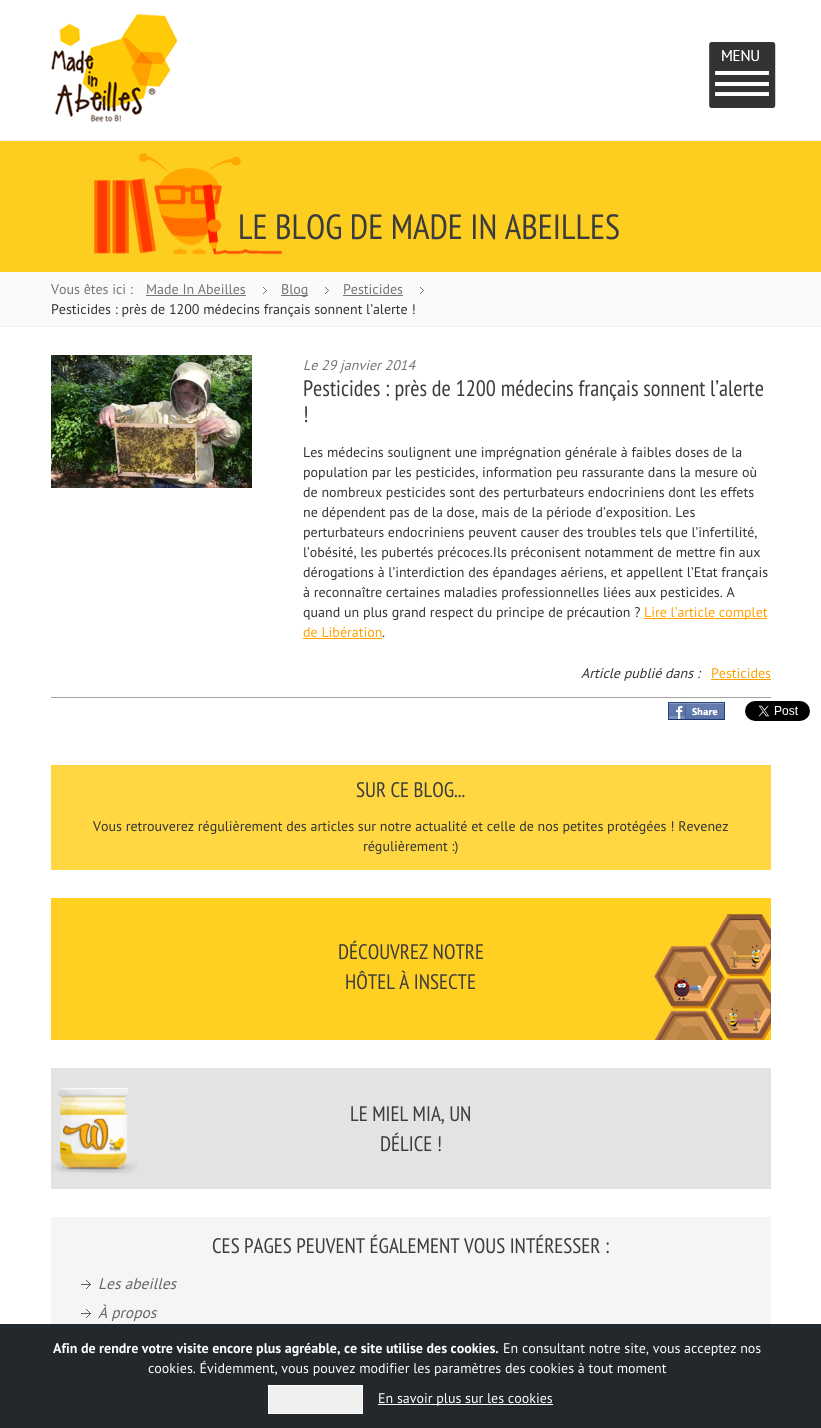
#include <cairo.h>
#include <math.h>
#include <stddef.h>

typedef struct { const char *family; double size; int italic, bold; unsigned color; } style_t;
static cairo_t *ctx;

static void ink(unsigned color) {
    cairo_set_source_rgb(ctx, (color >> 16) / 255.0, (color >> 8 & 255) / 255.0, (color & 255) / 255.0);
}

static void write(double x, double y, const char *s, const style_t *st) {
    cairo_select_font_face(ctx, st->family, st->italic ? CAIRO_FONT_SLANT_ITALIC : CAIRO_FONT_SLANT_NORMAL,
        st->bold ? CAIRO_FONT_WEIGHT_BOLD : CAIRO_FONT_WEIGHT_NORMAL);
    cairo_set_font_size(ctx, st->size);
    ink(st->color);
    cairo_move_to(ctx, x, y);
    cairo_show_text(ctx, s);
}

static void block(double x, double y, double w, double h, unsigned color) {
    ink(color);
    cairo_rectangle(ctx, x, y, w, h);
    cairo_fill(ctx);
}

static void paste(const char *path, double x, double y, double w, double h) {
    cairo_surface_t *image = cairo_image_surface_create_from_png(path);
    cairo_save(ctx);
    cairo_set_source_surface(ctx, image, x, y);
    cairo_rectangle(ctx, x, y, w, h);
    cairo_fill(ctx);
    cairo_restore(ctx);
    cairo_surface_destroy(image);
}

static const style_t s1 = {"PT Sans Narrow", 35, 0, 0, 0x3c3c3c};
static const style_t s2 = {"PT Sans", 14, 0, 0, 0x757474};
static const style_t s3 = {"PT Sans", 14, 0, 0, 0x333333};
static const style_t s4 = {"PT Sans", 14, 1, 0, 0x757474};
static const style_t s5 = {"PT Sans Narrow", 22.4, 0, 0, 0x3c3c3c};
static const style_t s6 = {"PT Sans", 14, 0, 0, 0xffa200};
static const style_t s7 = {"PT Sans", 14, 1, 0, 0x333333};
static const style_t s8 = {"PT Sans Narrow", 21, 0, 0, 0x3c3c3c};
static const style_t s9 = {"PT Sans", 15.5, 1, 0, 0x666666};
static const style_t s10 = {"PT Sans", 14, 0, 1, 0xffffff};
static const style_t s11 = {"PT Sans", 14, 0, 0, 0xffffff};

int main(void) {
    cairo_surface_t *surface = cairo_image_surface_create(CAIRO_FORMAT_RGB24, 821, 1428);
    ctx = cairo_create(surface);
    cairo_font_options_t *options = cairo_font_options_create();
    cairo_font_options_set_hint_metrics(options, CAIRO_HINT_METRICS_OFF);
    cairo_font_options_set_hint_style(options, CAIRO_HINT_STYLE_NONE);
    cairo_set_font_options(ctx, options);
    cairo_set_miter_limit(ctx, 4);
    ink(0xffffff);
    cairo_paint(ctx);
    paste("pic1.png", 51, 14, 127, 108);
    paste("pic2.png", 709, 42, 67, 66);
    block(0, 141, 821, 131, 0xfdce20);
    block(0, 140, 821, 1, 0xf4f4f4);
    paste("pic3.png", 94, 153, 188, 102);
    write(238, 239, "LE BLOG DE MADE IN ABEILLES", &s1);
    block(0, 272, 821, 54, 0xfafafa);
    block(0, 326, 821, 1, 0xf4f4f4);
    write(51, 294, "Vous êtes ici :", &s2);
    write(146, 294, "Made In Abeilles", &s2);
    block(146, 295, 100, 1, 0x757474);
    paste("pic4.png", 263, 287, 4, 7);
    block(281, 295, 27, 1, 0x757474);
    write(281, 294, "Blog", &s2);
    paste("pic5.png", 325, 287, 4, 7);
    write(343, 294, "Pesticides", &s2);
    block(343, 295, 60, 1, 0x757474);
    paste("pic4.png", 420, 287, 4, 7);
    write(51, 314, "Pesticides : près de 1200 médecins français sonnent l’alerte !", &s3);
    paste("pic6.png", 51, 355, 201, 133);
    write(303, 370, "Le 29 janvier 2014", &s4);
    write(303, 396, "Pesticides : près de 1200 médecins français sonnent l’alerte", &s5);
    write(303, 422, "!", &s5);
    write(303, 457, "Les médecins soulignent une imprégnation générale à faibles doses de la", &s3);
    write(303, 477, "population par les pesticides, information peu rassurante dans la mesure où", &s3);
    write(303, 497, "de nombreux pesticides sont des perturbateurs endocriniens dont les effets", &s3);
    write(303, 517, "ne dépendent pas de la dose, mais de la période d’exposition. Les", &s3);
    write(303, 537, "perturbateurs endocriniens peuvent causer des troubles tels que l’infertilité,", &s3);
    write(303, 557, "l’obésité, les pubertés précoces.Ils préconisent notamment de mettre fin aux", &s3);
    write(303, 577, "dérogations à l’interdiction des épandages aériens, et appellent l’Etat français", &s3);
    write(303, 597, "à reconnaître certaines maladies professionnelles liées aux pesticides. A", &s3);
    write(303, 617, "quand un plus grand respect du principe de précaution ?", &s3);
    block(644, 618, 123, 1, 0xffa200);
    write(644, 617, "Lire l’article complet", &s6);
    write(303, 637, "de Libération", &s6);
    block(303, 638, 79, 1, 0xffa200);
    write(382, 637, ".", &s3);
    block(51, 697, 720, 1, 0xa3a3a3);
    write(581, 678, "Article publié dans :", &s7);
    write(711, 678, "Pesticides", &s6);
    block(711, 679, 60, 1, 0xffa200);
    paste("pic7.png", 668, 702, 57, 18);
    paste("pic8.png", 745, 701, 65, 20);
    block(51, 765, 720, 105, 0xffd743);
    write(356, 797, "SUR CE BLOG...", &s8);
    write(93, 831, "Vous retrouverez régulièrement des articles sur notre actualité et celle de nos petites protégées ! Revenez", &s3);
    write(363, 851, "régulièrement :)", &s3);
    block(51, 898, 720, 142, 0xffd022);
    paste("pic9.png", 654, 914, 117, 126);
    write(338, 959, "DÉCOUVREZ NOTRE", &s8);
    write(345, 989, "HÔTEL À INSECTE", &s8);
    block(51, 1068, 720, 121, 0xe3e3e3);
    paste("pic10.png", 51, 1088, 87, 86);
    write(350, 1121, "LE MIEL MIA, UN", &s8);
    write(380, 1151, "DÉLICE !", &s8);
    block(51, 1217, 720, 107, 0xf5f5f5);
    write(212, 1253, "CES PAGES PEUVENT ÉGALEMENT VOUS INTÉRESSER :", &s8);
    paste("pic11.png", 81, 1280, 10, 9);
    write(98, 1289, "Les abeilles", &s9);
    paste("pic11.png", 81, 1309, 10, 9);
    write(98, 1318, "À propos", &s9);
    block(0, 1324, 821, 104, 0x23282d);
    write(53, 1353, "Afin de rendre votre visite encore plus agréable, ce site utilise des cookies.", &s10);
    write(503, 1353, "En consultant notre site, vous acceptez nos", &s11);
    write(148, 1373, "cookies. Évidemment, vous pouvez modifier les paramètres des cookies à tout moment", &s11);
    ink(0xefefef);
    cairo_rectangle(ctx, 268.5, 1385.5, 94, 28);
    cairo_fill_preserve(ctx);
    ink(0xffffff);
    cairo_set_line_width(ctx, 1);
    cairo_stroke(ctx);
    block(378, 1404, 175, 1, 0xffffff);
    write(378, 1403, "En savoir plus sur les cookies", &s11);
    cairo_surface_write_to_png(surface, "screenshot.png");
    cairo_font_options_destroy(options);
    cairo_destroy(ctx);
    cairo_surface_destroy(surface);
    return 0;
}
